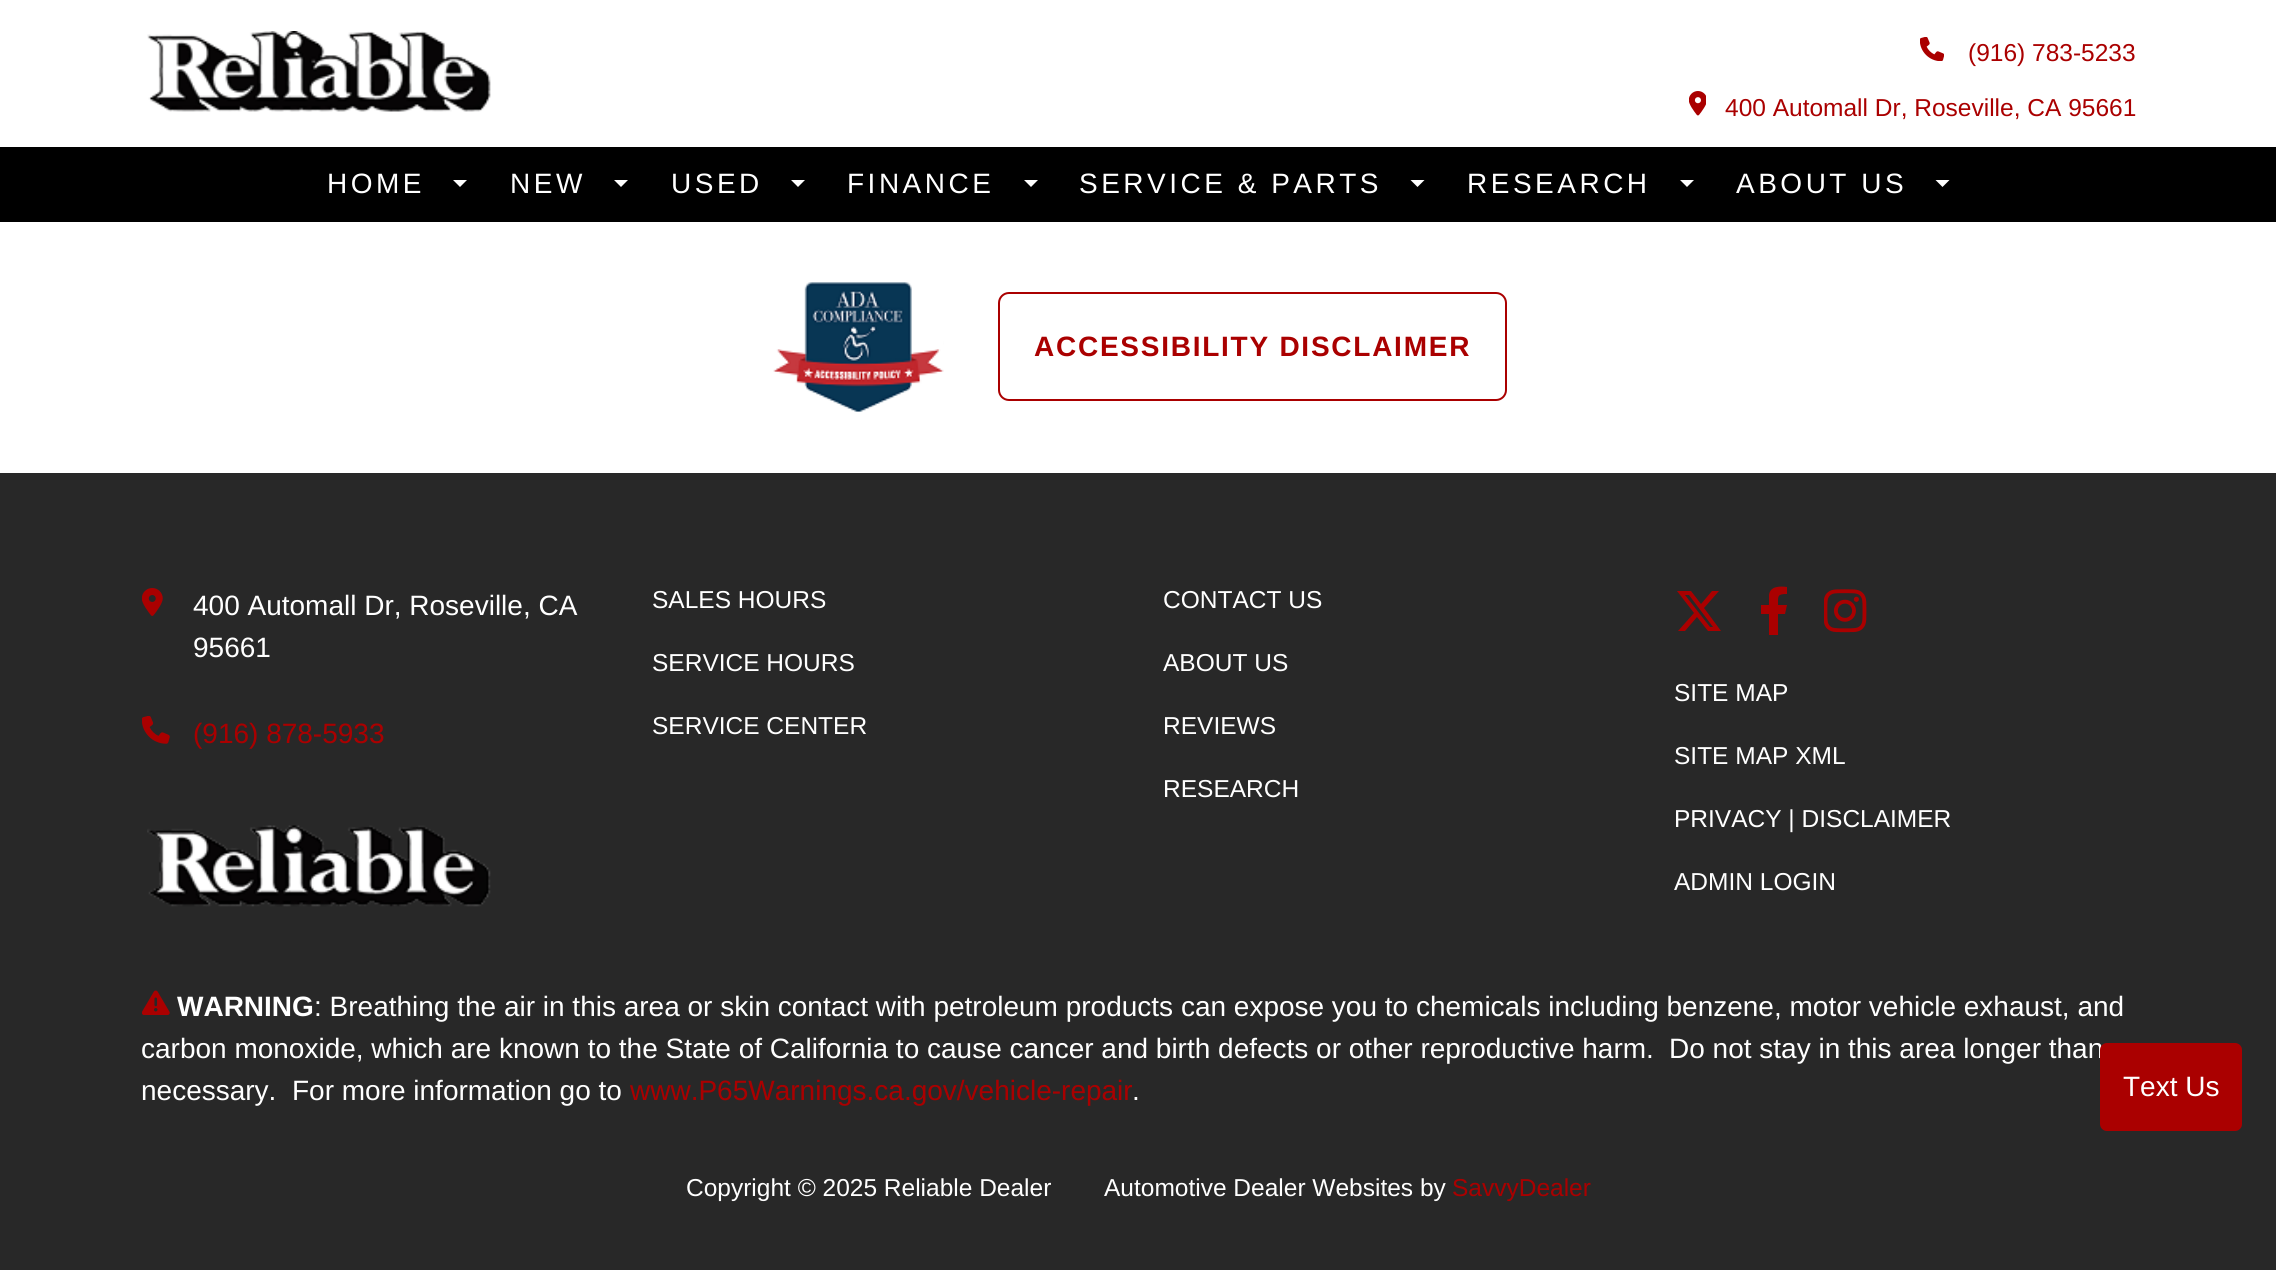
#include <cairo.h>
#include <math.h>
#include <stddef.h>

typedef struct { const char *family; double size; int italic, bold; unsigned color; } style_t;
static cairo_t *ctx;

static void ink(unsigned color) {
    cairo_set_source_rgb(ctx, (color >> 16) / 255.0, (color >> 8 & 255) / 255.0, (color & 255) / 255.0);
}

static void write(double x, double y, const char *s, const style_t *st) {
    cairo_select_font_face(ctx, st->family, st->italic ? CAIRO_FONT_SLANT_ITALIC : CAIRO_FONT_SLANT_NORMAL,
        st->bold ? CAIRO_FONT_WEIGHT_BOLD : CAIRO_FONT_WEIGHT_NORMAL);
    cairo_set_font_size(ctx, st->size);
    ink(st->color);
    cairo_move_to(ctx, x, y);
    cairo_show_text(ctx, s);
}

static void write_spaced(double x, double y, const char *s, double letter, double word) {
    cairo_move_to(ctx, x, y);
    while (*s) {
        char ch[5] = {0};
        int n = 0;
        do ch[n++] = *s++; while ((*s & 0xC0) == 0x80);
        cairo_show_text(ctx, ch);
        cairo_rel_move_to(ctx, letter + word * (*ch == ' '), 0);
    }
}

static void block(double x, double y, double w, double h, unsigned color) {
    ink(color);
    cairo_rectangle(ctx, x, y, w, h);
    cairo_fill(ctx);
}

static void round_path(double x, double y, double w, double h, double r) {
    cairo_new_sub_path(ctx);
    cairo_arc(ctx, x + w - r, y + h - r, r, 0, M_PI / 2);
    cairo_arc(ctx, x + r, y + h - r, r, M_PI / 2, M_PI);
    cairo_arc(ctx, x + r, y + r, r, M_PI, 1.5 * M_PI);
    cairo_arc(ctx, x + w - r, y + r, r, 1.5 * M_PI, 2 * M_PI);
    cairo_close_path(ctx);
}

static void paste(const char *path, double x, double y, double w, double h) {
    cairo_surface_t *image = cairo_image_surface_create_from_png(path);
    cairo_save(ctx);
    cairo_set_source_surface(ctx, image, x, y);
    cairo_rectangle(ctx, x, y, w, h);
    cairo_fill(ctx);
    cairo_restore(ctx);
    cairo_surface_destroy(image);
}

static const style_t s1 = {"Liberation Sans", 24.5, 0, 0, 0xaa0000};
static const style_t s2 = {"Liberation Sans", 28, 0, 0, 0xffffff};
static const style_t s3 = {"Liberation Sans", 28, 0, 0, 0xaa0000};
static const style_t s4 = {"Liberation Sans", 24.5, 0, 0, 0xffffff};
static const style_t s5 = {"Liberation Sans", 28, 0, 1, 0xffffff};

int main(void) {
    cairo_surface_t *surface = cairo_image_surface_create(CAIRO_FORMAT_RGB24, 2276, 1270);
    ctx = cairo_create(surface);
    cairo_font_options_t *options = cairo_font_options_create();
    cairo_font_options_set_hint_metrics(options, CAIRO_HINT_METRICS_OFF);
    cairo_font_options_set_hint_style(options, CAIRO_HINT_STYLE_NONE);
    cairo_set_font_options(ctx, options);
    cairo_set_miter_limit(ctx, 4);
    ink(0xffffff);
    cairo_paint(ctx);
    paste("pic1.png", 147, 31, 344, 81);
    paste("pic2.png", 1920, 37, 24, 24);
    write(1968, 61, "(916) 783-5233", &s1);
    paste("pic3.png", 1689, 91, 17, 25);
    write(1725, 116, "400 Automall Dr, Roseville, CA 95661", &s1);
    block(0, 147, 2276, 75, 0x000000);
    cairo_set_font_size(ctx, 28);
    ink(0xffffff);
    write_spaced(327, 193, "HOME", 3.5, 0);
    cairo_new_path(ctx);
    cairo_move_to(ctx, 453, 180);
    cairo_line_to(ctx, 467, 180);
    cairo_line_to(ctx, 460, 187);
    cairo_close_path(ctx);
    cairo_fill(ctx);
    write_spaced(510, 193, "NEW", 3.5, 0);
    cairo_new_path(ctx);
    cairo_move_to(ctx, 614, 180);
    cairo_line_to(ctx, 628, 180);
    cairo_line_to(ctx, 621, 187);
    cairo_close_path(ctx);
    cairo_fill(ctx);
    write_spaced(671, 193, "USED", 3.5, 0);
    cairo_new_path(ctx);
    cairo_move_to(ctx, 791, 180);
    cairo_line_to(ctx, 805, 180);
    cairo_line_to(ctx, 798, 187);
    cairo_close_path(ctx);
    cairo_fill(ctx);
    write_spaced(847, 193, "FINANCE", 3.5, 0);
    cairo_new_path(ctx);
    cairo_move_to(ctx, 1024, 180);
    cairo_line_to(ctx, 1038, 180);
    cairo_line_to(ctx, 1031, 187);
    cairo_close_path(ctx);
    cairo_fill(ctx);
    write_spaced(1079, 193, "SERVICE & PARTS", 3.5, 0);
    cairo_new_path(ctx);
    cairo_move_to(ctx, 1410.5, 180);
    cairo_line_to(ctx, 1424.5, 180);
    cairo_line_to(ctx, 1417.5, 187);
    cairo_close_path(ctx);
    cairo_fill(ctx);
    write_spaced(1467, 193, "RESEARCH", 3.5, 0);
    cairo_new_path(ctx);
    cairo_move_to(ctx, 1680, 180);
    cairo_line_to(ctx, 1694, 180);
    cairo_line_to(ctx, 1687, 187);
    cairo_close_path(ctx);
    cairo_fill(ctx);
    write_spaced(1736, 193, "ABOUT US", 3.5, 0);
    cairo_new_path(ctx);
    cairo_move_to(ctx, 1935.5, 180);
    cairo_line_to(ctx, 1949.5, 180);
    cairo_line_to(ctx, 1942.5, 187);
    cairo_close_path(ctx);
    cairo_fill(ctx);
    paste("pic4.png", 773, 282, 171, 130);
    round_path(999, 293, 507, 107, 10);
    ink(0xaa0000);
    cairo_stroke(ctx);
    cairo_select_font_face(ctx, "Liberation Sans", CAIRO_FONT_SLANT_NORMAL, CAIRO_FONT_WEIGHT_BOLD);
    write_spaced(1034, 356, "ACCESSIBILITY DISCLAIMER", 1.75, 0);
    block(0, 473, 2276, 797, 0x282828);
    paste("pic5.png", 142, 588, 21, 28);
    write(193, 615, "400 Automall Dr, Roseville, CA", &s2);
    write(193, 657, "95661", &s2);
    paste("pic6.png", 142, 716, 28, 28);
    write(193, 743, "(916) 878-5933", &s3);
    paste("pic7.png", 147, 825, 344, 82);
    write(652, 608, "SALES HOURS", &s4);
    write(652, 671, "SERVICE HOURS", &s4);
    write(652, 734, "SERVICE CENTER", &s4);
    write(1163, 608, "CONTACT US", &s4);
    write(1163, 671, "ABOUT US", &s4);
    write(1163, 734, "REVIEWS", &s4);
    write(1163, 797, "RESEARCH", &s4);
    ink(0xaa0000);
    cairo_new_path(ctx);
    cairo_move_to(ctx, 1712, 591);
    cairo_line_to(ctx, 1719, 591);
    cairo_line_to(ctx, 1704, 608);
    cairo_line_to(ctx, 1721, 631);
    cairo_line_to(ctx, 1708, 631);
    cairo_line_to(ctx, 1697, 617);
    cairo_line_to(ctx, 1685, 631);
    cairo_line_to(ctx, 1678, 631);
    cairo_line_to(ctx, 1694, 613);
    cairo_line_to(ctx, 1677, 591);
    cairo_line_to(ctx, 1691, 591);
    cairo_line_to(ctx, 1701, 604);
    cairo_close_path(ctx);
    cairo_move_to(ctx, 1710, 627);
    cairo_line_to(ctx, 1713, 627);
    cairo_line_to(ctx, 1689, 595);
    cairo_line_to(ctx, 1685, 595);
    cairo_close_path(ctx);
    cairo_fill(ctx);
    cairo_new_path(ctx);
    cairo_move_to(ctx, 1785, 614);
    cairo_line_to(ctx, 1787, 605);
    cairo_line_to(ctx, 1778, 605);
    cairo_curve_to(ctx, 1778, 596, 1777, 594, 1787, 594);
    cairo_line_to(ctx, 1787, 587);
    cairo_curve_to(ctx, 1780, 586, 1770, 586, 1769, 595);
    cairo_line_to(ctx, 1769, 605);
    cairo_line_to(ctx, 1761, 605);
    cairo_line_to(ctx, 1761, 614);
    cairo_line_to(ctx, 1769, 614);
    cairo_line_to(ctx, 1769, 635);
    cairo_line_to(ctx, 1778, 635);
    cairo_line_to(ctx, 1778, 614);
    cairo_close_path(ctx);
    cairo_fill(ctx);
    paste("pic8.png", 1824, 589, 43, 44);
    write(1674, 701, "SITE MAP", &s4);
    write(1674, 764, "SITE MAP XML", &s4);
    write(1674, 827, "PRIVACY | DISCLAIMER", &s4);
    write(1674, 890, "ADMIN LOGIN", &s4);
    paste("pic9.png", 142, 990, 28, 25);
    write(177, 1016, "WARNING", &s5);
    write(314, 1016, ": Breathing the air in this area or skin contact with petroleum products can expose you to chemicals including benzene, motor vehicle exhaust, and", &s2);
    write(141, 1058, "carbon monoxide, which are known to the State of California to cause cancer and birth defects or other reproductive harm.", &s2);
    write(1669, 1058, "Do not stay in this area longer than", &s2);
    write(141, 1100, "necessary.  For more information go to", &s2);
    write(630, 1100, "www.P65Warnings.ca.gov/vehicle-repair", &s3);
    write(1132, 1100, ".", &s2);
    write(686, 1196, "Copyright © 2025 Reliable Dealer", &s4);
    write(1104, 1196, "Automotive Dealer Websites by", &s4);
    write(1452, 1196, "SavvyDealer", &s1);
    round_path(2101, 1044, 140, 86, 6);
    cairo_fill_preserve(ctx);
    cairo_stroke(ctx);
    write(2123, 1096, "Text Us", &s2);
    cairo_surface_write_to_png(surface, "screenshot.png");
    cairo_font_options_destroy(options);
    cairo_destroy(ctx);
    cairo_surface_destroy(surface);
    return 0;
}
